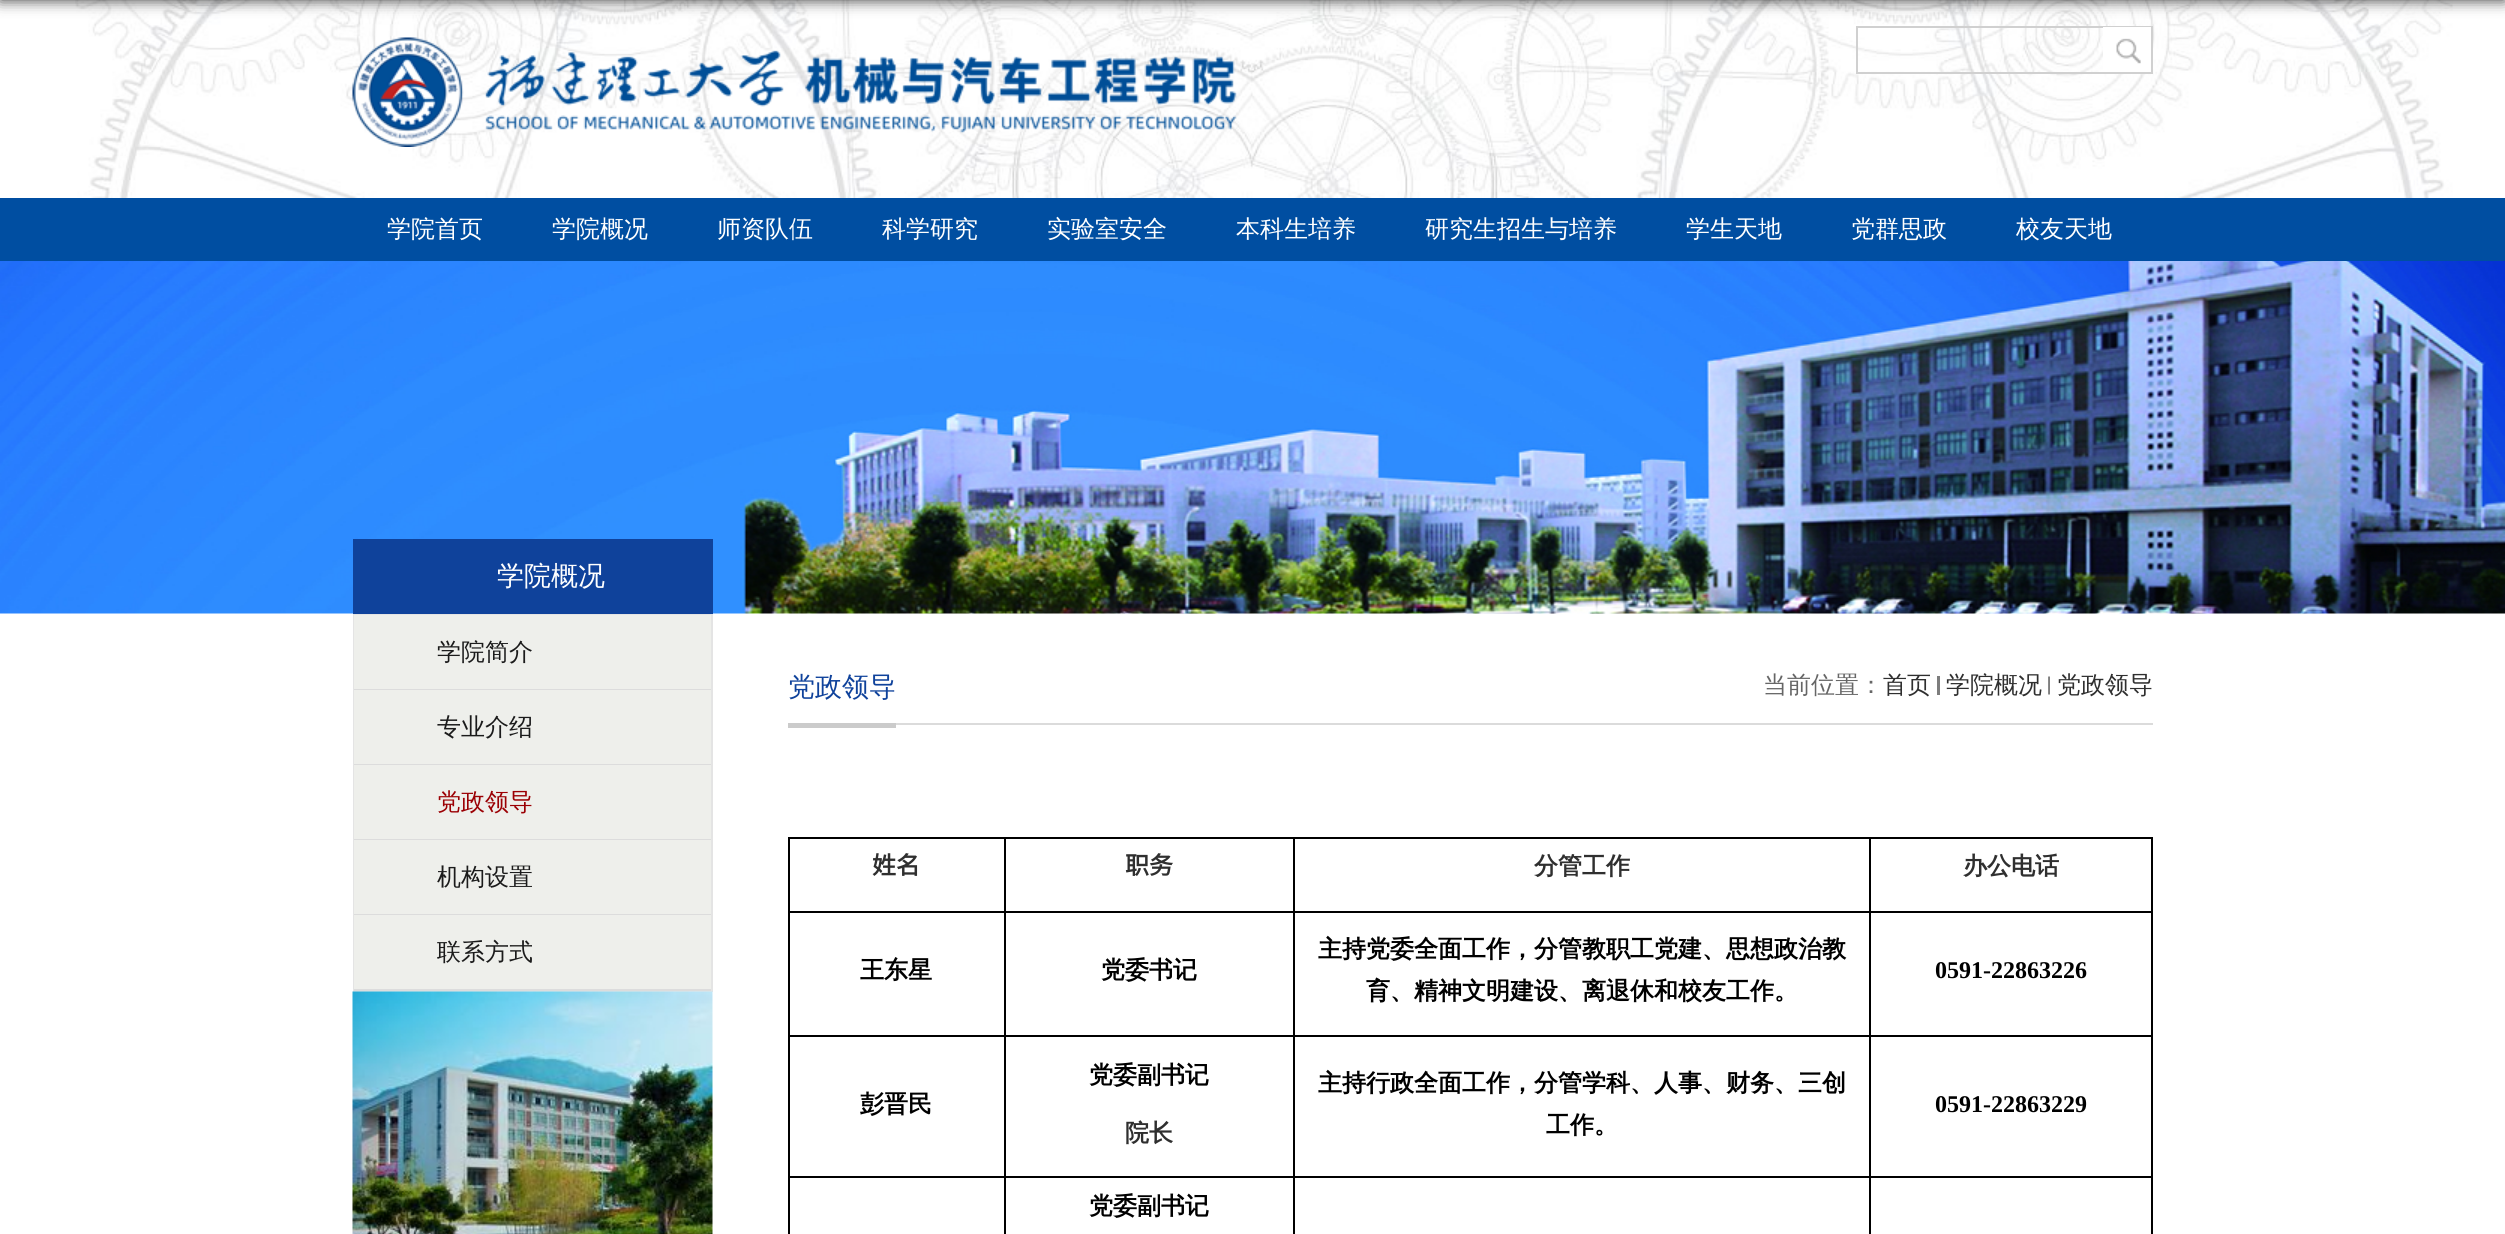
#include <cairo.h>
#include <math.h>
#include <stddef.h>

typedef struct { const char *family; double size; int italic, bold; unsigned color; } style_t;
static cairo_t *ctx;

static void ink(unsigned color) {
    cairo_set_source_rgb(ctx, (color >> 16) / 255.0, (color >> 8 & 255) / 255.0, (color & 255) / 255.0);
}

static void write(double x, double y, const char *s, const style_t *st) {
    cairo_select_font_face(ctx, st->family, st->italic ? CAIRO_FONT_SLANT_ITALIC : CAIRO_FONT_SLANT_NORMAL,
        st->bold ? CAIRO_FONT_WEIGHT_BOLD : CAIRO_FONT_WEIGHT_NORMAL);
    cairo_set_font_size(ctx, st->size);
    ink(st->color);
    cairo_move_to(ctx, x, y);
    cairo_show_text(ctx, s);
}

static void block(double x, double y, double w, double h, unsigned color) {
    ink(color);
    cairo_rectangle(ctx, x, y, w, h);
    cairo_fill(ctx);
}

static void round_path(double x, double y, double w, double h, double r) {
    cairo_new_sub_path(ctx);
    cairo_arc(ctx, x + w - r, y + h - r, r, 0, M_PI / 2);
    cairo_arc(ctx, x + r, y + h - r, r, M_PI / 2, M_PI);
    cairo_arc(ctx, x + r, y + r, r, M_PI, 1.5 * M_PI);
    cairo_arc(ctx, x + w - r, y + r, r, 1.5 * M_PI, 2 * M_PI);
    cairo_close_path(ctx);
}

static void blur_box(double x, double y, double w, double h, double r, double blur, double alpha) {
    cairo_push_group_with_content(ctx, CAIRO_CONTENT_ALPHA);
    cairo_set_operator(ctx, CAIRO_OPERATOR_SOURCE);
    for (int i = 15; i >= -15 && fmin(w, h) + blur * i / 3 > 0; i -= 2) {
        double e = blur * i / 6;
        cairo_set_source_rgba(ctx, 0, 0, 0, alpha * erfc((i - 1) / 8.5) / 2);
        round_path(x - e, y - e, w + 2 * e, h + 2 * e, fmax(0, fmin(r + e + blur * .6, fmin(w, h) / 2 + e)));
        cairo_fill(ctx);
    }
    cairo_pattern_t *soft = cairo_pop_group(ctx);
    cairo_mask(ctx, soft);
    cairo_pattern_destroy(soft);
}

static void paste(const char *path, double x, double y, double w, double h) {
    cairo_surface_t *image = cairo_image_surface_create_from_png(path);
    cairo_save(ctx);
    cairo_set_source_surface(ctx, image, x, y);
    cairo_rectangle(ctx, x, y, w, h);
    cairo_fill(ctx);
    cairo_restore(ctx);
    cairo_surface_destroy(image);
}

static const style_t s1 = {"WenQuanYi Zen Hei Medium", 24, 0, 0, 0xffffff};
static const style_t s2 = {"WenQuanYi Zen Hei Medium", 27, 0, 0, 0xffffff};
static const style_t s3 = {"WenQuanYi Zen Hei Medium", 24, 0, 0, 0x1b1b1b};
static const style_t s4 = {"WenQuanYi Zen Hei Medium", 24, 0, 0, 0x9b0004};
static const style_t s5 = {"WenQuanYi Zen Hei Medium", 27, 0, 0, 0x0f429b};
static const style_t s6 = {"WenQuanYi Zen Hei Medium", 24, 0, 0, 0x666666};
static const style_t s7 = {"WenQuanYi Zen Hei Medium", 24, 0, 0, 0x2f2f2f};
static const style_t s8 = {"Noto Sans CJK SC", 24, 0, 1, 0x2f2f2f};
static const style_t s9 = {"WenQuanYi Zen Hei", 24, 0, 1, 0x2f2f2f};
static const style_t s10 = {"WenQuanYi Zen Hei", 24, 0, 1, 0x000000};
static const style_t s11 = {"Liberation Serif", 24, 0, 1, 0x000000};

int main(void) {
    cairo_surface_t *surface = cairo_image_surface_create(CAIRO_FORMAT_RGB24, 2505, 1234);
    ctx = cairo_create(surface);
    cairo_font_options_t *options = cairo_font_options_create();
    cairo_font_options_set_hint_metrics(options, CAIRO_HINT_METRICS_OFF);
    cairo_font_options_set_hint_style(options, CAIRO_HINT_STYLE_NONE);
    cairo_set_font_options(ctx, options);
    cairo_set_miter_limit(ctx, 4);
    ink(0xffffff);
    cairo_paint(ctx);
    paste("pic1.png", 75, 0, 2378, 198);
    ink(0x000000);
    blur_box(0, -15, 2505, 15, 0, 7.5, 0.8);
    paste("pic2.png", 352, 37, 885, 110);
    cairo_rectangle(ctx, 1857, 27, 295, 46);
    ink(0xd0d0d0);
    cairo_stroke(ctx);
    block(2103, 27, 48, 45, 0xffffff);
    paste("pic3.png", 2116, 38, 25, 26);
    block(0, 198, 2505, 63, 0x004ea1);
    write(387, 237, "学院首页", &s1);
    write(552, 237, "学院概况", &s1);
    write(717, 237, "师资队伍", &s1);
    write(882, 237, "科学研究", &s1);
    write(1047, 237, "实验室安全", &s1);
    write(1236, 237, "本科生培养", &s1);
    write(1425, 237, "研究生招生与培养", &s1);
    write(1686, 237, "学生天地", &s1);
    write(1851, 237, "党群思政", &s1);
    write(2016, 237, "校友天地", &s1);
    paste("pic4.png", 0, 261, 2505, 353);
    block(353, 539, 360, 75, 0x0f429b);
    write(497, 585, "学院概况", &s2);
    cairo_rectangle(ctx, 354, 615, 358, 376);
    ink(0xe4e4e4);
    cairo_stroke(ctx);
    block(354, 615, 357, 74, 0xeeefeb);
    block(354, 689, 357, 1, 0xdcdcdc);
    write(437, 660, "学院简介", &s3);
    block(354, 690, 357, 74, 0xeeefeb);
    block(354, 764, 357, 1, 0xdcdcdc);
    write(437, 735, "专业介绍", &s3);
    block(354, 765, 357, 74, 0xeeefeb);
    block(354, 839, 357, 1, 0xdcdcdc);
    write(437, 810, "党政领导", &s4);
    block(354, 840, 357, 74, 0xeeefeb);
    block(354, 914, 357, 1, 0xdcdcdc);
    write(437, 885, "机构设置", &s3);
    block(354, 915, 357, 74, 0xeeefeb);
    block(354, 989, 357, 2, 0xdcdcdc);
    write(437, 960, "联系方式", &s3);
    paste("pic5.png", 352, 991, 361, 243);
    block(896, 723, 1257, 2, 0xdbdbdb);
    block(788, 723, 108, 5, 0xcbcbcb);
    write(788, 696, "党政领导", &s5);
    write(1763, 693, "当前位置：", &s6);
    write(1883, 693, "首页", &s7);
    block(1937, 676, 3, 19, 0x7d7d7d);
    write(1946, 693, "学院概况", &s7);
    paste("pic6.png", 2048, 676, 2, 19);
    write(2057, 693, "党政领导", &s7);
    block(1869, 837, 284, 2, 0x000000);
    block(1869, 911, 284, 2, 0x000000);
    block(1869, 1035, 284, 2, 0x000000);
    block(1869, 1176, 284, 2, 0x000000);
    block(1869, 1176, 2, 58, 0x000000);
    block(1293, 1176, 578, 2, 0x000000);
    block(1869, 1035, 2, 143, 0x000000);
    block(1293, 1035, 578, 2, 0x000000);
    block(1869, 911, 2, 126, 0x000000);
    block(1293, 911, 578, 2, 0x000000);
    block(1869, 837, 2, 75, 0x000000);
    block(1293, 837, 578, 2, 0x000000);
    block(1293, 1176, 2, 58, 0x000000);
    block(1004, 1176, 291, 2, 0x000000);
    block(1293, 1035, 2, 143, 0x000000);
    block(1004, 1035, 291, 2, 0x000000);
    block(1293, 911, 2, 126, 0x000000);
    block(1004, 911, 291, 2, 0x000000);
    block(1293, 837, 2, 75, 0x000000);
    block(1004, 837, 291, 2, 0x000000);
    block(1004, 1176, 2, 58, 0x000000);
    block(788, 1176, 217, 2, 0x000000);
    block(1004, 1035, 2, 143, 0x000000);
    block(788, 1035, 217, 2, 0x000000);
    block(1004, 911, 2, 126, 0x000000);
    block(788, 911, 217, 2, 0x000000);
    block(1004, 837, 2, 75, 0x000000);
    block(788, 837, 217, 2, 0x000000);
    block(788, 1176, 2, 58, 0x000000);
    block(788, 1035, 2, 143, 0x000000);
    block(788, 911, 2, 126, 0x000000);
    block(788, 837, 2, 75, 0x000000);
    write(872, 874, "姓名", &s8);
    write(1125, 874, "职务", &s8);
    write(1534, 874, "分管工作", &s9);
    block(2151, 1176, 2, 58, 0x000000);
    block(2151, 1035, 2, 143, 0x000000);
    block(2151, 911, 2, 126, 0x000000);
    block(2151, 837, 2, 75, 0x000000);
    write(1963, 874, "办公电话", &s9);
    write(860, 978, "王东星", &s10);
    write(1101, 978, "党委书记", &s10);
    write(1318, 957, "主持党委全面工作，分管教职工党建、思想政治教", &s10);
    write(1366, 999, "育、精神文明建设、离退休和校友工作。", &s10);
    write(1935, 978, "0591-22863226", &s11);
    write(860, 1112, "彭晋民", &s10);
    write(1089, 1083, "党委副书记", &s10);
    write(1125, 1141, "院长", &s9);
    write(1318, 1091, "主持行政全面工作，分管学科、人事、财务、三创", &s10);
    write(1546, 1133, "工作。", &s10);
    write(1935, 1112, "0591-22863229", &s11);
    write(1089, 1214, "党委副书记", &s10);
    cairo_surface_write_to_png(surface, "screenshot.png");
    cairo_font_options_destroy(options);
    cairo_destroy(ctx);
    cairo_surface_destroy(surface);
    return 0;
}
